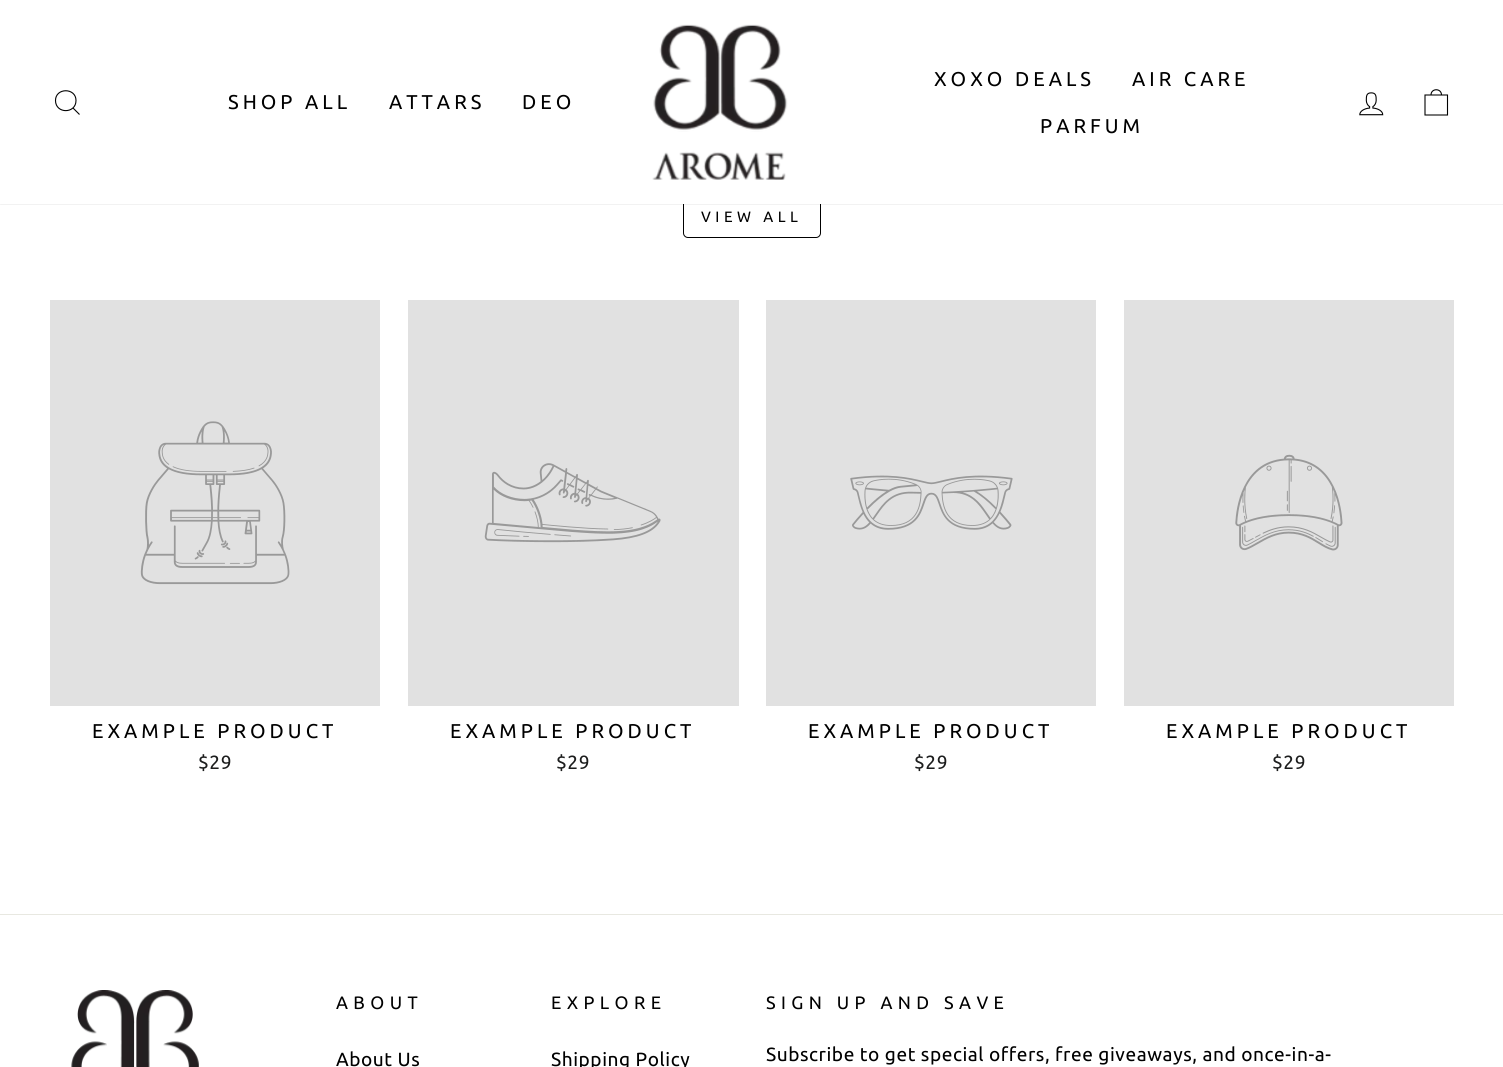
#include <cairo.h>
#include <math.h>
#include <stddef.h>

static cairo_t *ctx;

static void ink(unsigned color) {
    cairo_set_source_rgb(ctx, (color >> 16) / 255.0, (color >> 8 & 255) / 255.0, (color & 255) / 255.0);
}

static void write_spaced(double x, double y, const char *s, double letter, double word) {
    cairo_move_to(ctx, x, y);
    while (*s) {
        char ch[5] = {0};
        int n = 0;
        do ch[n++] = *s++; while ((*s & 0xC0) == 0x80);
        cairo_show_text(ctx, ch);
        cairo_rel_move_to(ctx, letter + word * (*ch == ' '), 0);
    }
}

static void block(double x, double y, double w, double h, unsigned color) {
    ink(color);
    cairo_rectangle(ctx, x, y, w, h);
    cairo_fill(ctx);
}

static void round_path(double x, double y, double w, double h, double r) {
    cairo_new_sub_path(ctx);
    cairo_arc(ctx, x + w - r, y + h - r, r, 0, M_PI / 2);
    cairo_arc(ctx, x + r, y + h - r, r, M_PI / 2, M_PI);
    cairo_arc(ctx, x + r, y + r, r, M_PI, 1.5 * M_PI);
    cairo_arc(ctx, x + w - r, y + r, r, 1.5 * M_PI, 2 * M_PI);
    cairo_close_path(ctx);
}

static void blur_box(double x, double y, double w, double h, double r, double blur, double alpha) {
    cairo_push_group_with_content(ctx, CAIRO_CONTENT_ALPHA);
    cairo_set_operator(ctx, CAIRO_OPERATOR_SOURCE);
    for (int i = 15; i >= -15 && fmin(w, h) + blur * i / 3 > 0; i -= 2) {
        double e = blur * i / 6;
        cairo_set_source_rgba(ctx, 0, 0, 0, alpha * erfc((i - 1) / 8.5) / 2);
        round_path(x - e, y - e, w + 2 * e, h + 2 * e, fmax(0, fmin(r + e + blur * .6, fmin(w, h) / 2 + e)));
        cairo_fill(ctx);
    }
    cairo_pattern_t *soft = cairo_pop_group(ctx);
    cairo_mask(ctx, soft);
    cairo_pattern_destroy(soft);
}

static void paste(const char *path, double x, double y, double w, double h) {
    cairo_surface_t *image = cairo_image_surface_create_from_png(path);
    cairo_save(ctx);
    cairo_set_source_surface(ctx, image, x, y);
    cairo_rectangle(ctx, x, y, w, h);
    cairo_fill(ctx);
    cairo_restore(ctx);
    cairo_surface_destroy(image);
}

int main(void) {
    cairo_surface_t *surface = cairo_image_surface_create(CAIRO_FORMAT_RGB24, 1503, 1067);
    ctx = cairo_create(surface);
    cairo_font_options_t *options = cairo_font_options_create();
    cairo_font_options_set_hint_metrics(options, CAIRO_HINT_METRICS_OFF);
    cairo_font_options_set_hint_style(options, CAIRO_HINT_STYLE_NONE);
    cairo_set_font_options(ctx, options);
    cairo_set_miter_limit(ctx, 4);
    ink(0xffffff);
    cairo_paint(ctx);
    round_path(683.5, 194.5, 137, 43, 4.5);
    ink(0x000000);
    cairo_set_line_width(ctx, 1);
    cairo_stroke(ctx);
    ink(0x000000);
    blur_box(0, 0, 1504, 204, 0, 0.5, 0.2);
    block(0, 0, 1503, 204, 0xffffff);
    cairo_new_path(ctx);
    cairo_move_to(ctx, 76, 100.5);
    cairo_curve_to(ctx, 76, 114, 55.5, 114, 55.5, 100.5);
    cairo_curve_to(ctx, 55.5, 87.5, 76, 87.5, 76, 100.5);
    cairo_close_path(ctx);
    cairo_move_to(ctx, 79.5, 114.5);
    cairo_line_to(ctx, 73, 108);
    ink(0x000000);
    cairo_set_line_width(ctx, 1.1);
    cairo_stroke(ctx);
    cairo_select_font_face(ctx, "Ubuntu", CAIRO_FONT_SLANT_NORMAL, CAIRO_FONT_WEIGHT_NORMAL);
    cairo_set_font_size(ctx, 20);
    write_spaced(228, 109, "SHOP ALL", 4, 0);
    write_spaced(389, 109, "ATTARS", 4, 0);
    write_spaced(522, 109, "DEO", 4, 0);
    paste("pic1.png", 652, 24, 136, 156);
    write_spaced(934, 86, "XOXO DEALS", 4, 0);
    write_spaced(1132, 86, "AIR CARE", 4, 0);
    write_spaced(1040, 133, "PARFUM", 4, 0);
    paste("pic2.png", 1359, 92, 25, 24);
    cairo_new_path(ctx);
    cairo_move_to(ctx, 1425, 95);
    cairo_line_to(ctx, 1447.5, 95);
    cairo_line_to(ctx, 1447.5, 115);
    cairo_line_to(ctx, 1425, 115);
    cairo_close_path(ctx);
    cairo_move_to(ctx, 1431, 95);
    cairo_curve_to(ctx, 1431, 88, 1441.5, 88, 1441.5, 95);
    cairo_stroke(ctx);
    cairo_set_font_size(ctx, 15);
    write_spaced(701, 222, "VIEW ALL", 4.5, 0);
    block(50, 300, 330, 406, 0xe1e1e1);
    paste("pic3.png", 140, 421, 150, 164);
    cairo_set_font_size(ctx, 20);
    ink(0x000000);
    write_spaced(92, 738, "EXAMPLE PRODUCT", 4, 0);
    cairo_set_font_size(ctx, 19.1);
    ink(0x1c1d1d);
    write_spaced(198, 769, "$29", 0.55, 0);
    block(408, 300, 331, 406, 0xe1e1e1);
    paste("pic4.png", 484, 463, 177, 80);
    cairo_set_font_size(ctx, 20);
    ink(0x000000);
    write_spaced(450, 738, "EXAMPLE PRODUCT", 4, 0);
    cairo_set_font_size(ctx, 19.1);
    ink(0x1c1d1d);
    write_spaced(556, 769, "$29", 0.55, 0);
    block(766, 300, 330, 406, 0xe1e1e1);
    paste("pic5.png", 850, 475, 163, 55);
    cairo_set_font_size(ctx, 20);
    ink(0x000000);
    write_spaced(808, 738, "EXAMPLE PRODUCT", 4, 0);
    cairo_set_font_size(ctx, 19.1);
    ink(0x1c1d1d);
    write_spaced(914, 769, "$29", 0.55, 0);
    block(1124, 300, 330, 406, 0xe1e1e1);
    paste("pic6.png", 1235, 454, 108, 97);
    cairo_set_font_size(ctx, 20);
    ink(0x000000);
    write_spaced(1166, 738, "EXAMPLE PRODUCT", 4, 0);
    cairo_set_font_size(ctx, 19.1);
    ink(0x1c1d1d);
    write_spaced(1272, 769, "$29", 0.55, 0);
    block(0, 914, 1503, 1, 0xe8e8e1);
    paste("pic7.png", 71, 990, 128, 77);
    cairo_set_font_size(ctx, 18);
    ink(0x000000);
    write_spaced(336, 1009, "ABOUT", 5.4, 0);
    cairo_set_font_size(ctx, 19.1);
    write_spaced(336, 1066, "About Us", 0.55, 0);
    cairo_set_font_size(ctx, 18);
    write_spaced(551, 1009, "EXPLORE", 5.4, 0);
    cairo_set_font_size(ctx, 19.1);
    write_spaced(551, 1066, "Shipping Policy", 0.55, 0);
    cairo_set_font_size(ctx, 18);
    write_spaced(766, 1009, "SIGN UP AND SAVE", 5.4, 0);
    cairo_set_font_size(ctx, 19.1);
    write_spaced(766, 1061, "Subscribe to get special offers, free giveaways, and once-in-a-", 0.55, 0);
    cairo_surface_write_to_png(surface, "screenshot.png");
    cairo_font_options_destroy(options);
    cairo_destroy(ctx);
    cairo_surface_destroy(surface);
    return 0;
}
